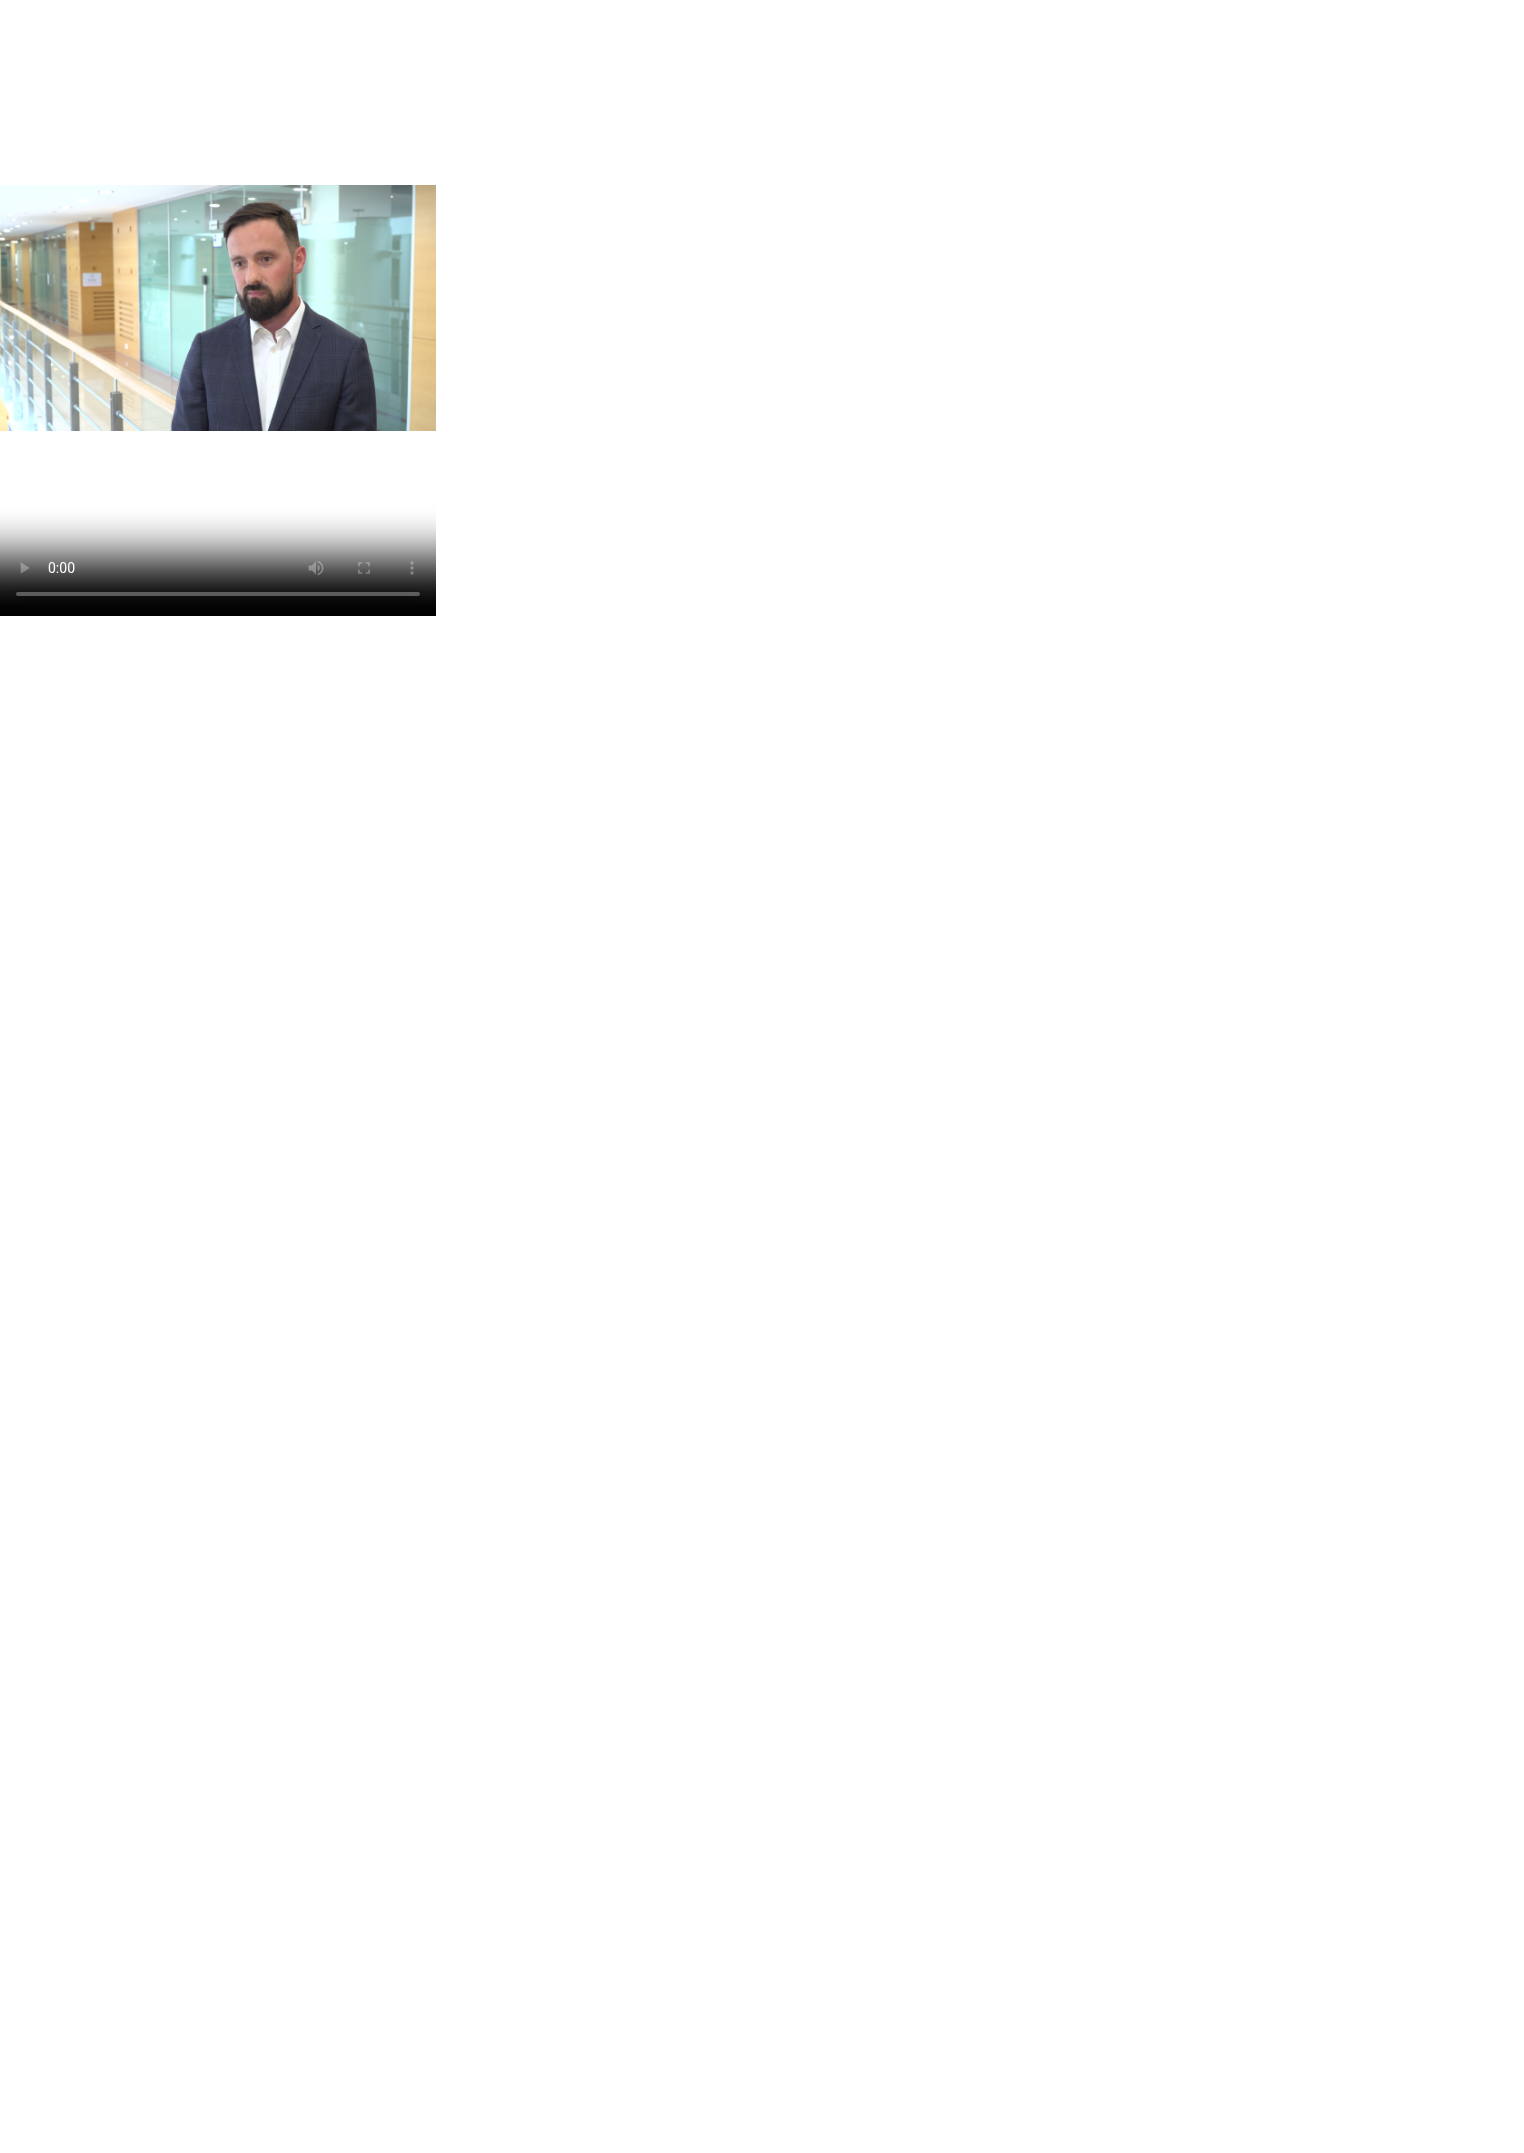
#include <cairo.h>
#include <math.h>
#include <stddef.h>

static cairo_t *ctx;

static void ink(unsigned color) {
    cairo_set_source_rgb(ctx, (color >> 16) / 255.0, (color >> 8 & 255) / 255.0, (color & 255) / 255.0);
}

static void paste(const char *path, double x, double y, double w, double h) {
    cairo_surface_t *image = cairo_image_surface_create_from_png(path);
    cairo_save(ctx);
    cairo_set_source_surface(ctx, image, x, y);
    cairo_rectangle(ctx, x, y, w, h);
    cairo_fill(ctx);
    cairo_restore(ctx);
    cairo_surface_destroy(image);
}

int main(void) {
    cairo_surface_t *surface = cairo_image_surface_create(CAIRO_FORMAT_RGB24, 1524, 2153);
    ctx = cairo_create(surface);
    cairo_font_options_t *options = cairo_font_options_create();
    cairo_font_options_set_hint_metrics(options, CAIRO_HINT_METRICS_OFF);
    cairo_font_options_set_hint_style(options, CAIRO_HINT_STYLE_NONE);
    cairo_set_font_options(ctx, options);
    cairo_set_miter_limit(ctx, 4);
    ink(0xffffff);
    cairo_paint(ctx);
    paste("pic1.png", 0, 185, 436, 431);
    cairo_surface_write_to_png(surface, "screenshot.png");
    cairo_font_options_destroy(options);
    cairo_destroy(ctx);
    cairo_surface_destroy(surface);
    return 0;
}
